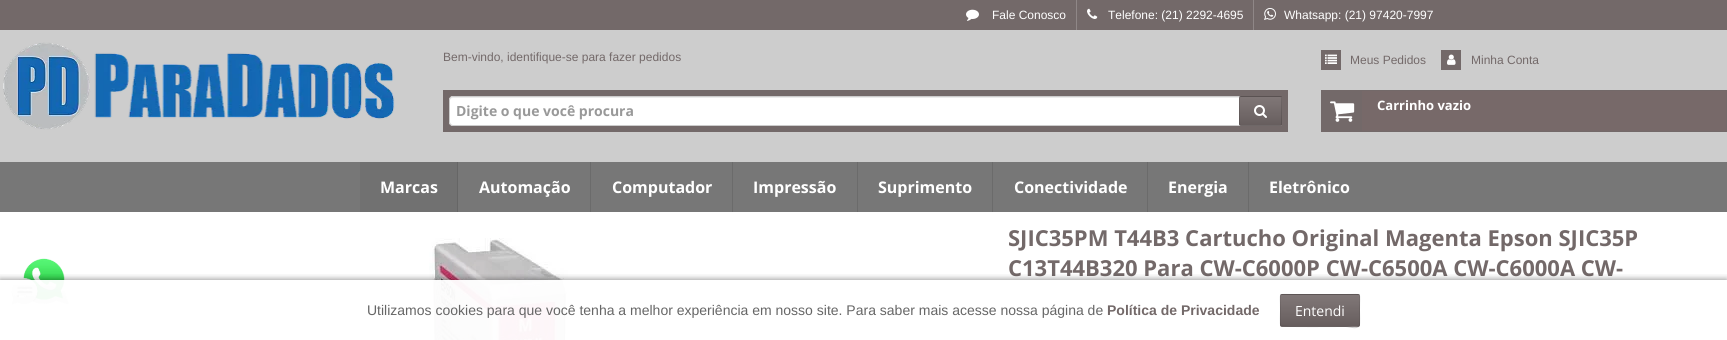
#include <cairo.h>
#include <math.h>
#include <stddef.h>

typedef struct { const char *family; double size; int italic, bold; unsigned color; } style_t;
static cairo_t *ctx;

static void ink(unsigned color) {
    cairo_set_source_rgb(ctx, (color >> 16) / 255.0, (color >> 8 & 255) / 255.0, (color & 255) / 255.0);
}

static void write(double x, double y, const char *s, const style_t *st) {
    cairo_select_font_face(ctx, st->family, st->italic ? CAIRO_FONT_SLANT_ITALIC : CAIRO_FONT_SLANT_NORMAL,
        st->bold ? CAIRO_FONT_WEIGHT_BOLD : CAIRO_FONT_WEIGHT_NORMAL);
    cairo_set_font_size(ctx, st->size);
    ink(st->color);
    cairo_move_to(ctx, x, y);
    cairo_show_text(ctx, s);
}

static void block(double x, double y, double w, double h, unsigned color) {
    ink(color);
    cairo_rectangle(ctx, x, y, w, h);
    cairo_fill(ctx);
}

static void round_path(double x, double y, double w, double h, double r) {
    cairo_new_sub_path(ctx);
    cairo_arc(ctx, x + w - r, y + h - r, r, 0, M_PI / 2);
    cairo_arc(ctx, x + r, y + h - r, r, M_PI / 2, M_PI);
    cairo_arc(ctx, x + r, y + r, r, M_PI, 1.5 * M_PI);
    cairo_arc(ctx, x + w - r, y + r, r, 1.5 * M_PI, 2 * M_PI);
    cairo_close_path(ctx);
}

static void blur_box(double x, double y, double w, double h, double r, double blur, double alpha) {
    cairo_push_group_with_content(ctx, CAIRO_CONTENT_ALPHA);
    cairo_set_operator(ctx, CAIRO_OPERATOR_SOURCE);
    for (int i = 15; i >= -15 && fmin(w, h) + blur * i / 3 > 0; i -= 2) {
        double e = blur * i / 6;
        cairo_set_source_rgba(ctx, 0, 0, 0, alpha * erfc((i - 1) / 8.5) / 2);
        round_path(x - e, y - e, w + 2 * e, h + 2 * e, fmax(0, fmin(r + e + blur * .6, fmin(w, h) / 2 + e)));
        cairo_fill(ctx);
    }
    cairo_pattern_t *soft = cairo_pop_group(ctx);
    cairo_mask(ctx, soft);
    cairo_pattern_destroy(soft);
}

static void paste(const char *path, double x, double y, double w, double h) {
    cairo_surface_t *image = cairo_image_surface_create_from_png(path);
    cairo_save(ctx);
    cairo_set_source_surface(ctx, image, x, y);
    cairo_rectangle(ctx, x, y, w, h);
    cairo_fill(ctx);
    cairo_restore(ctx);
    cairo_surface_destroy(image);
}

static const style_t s1 = {"Liberation Sans", 12, 0, 0, 0xffffff};
static const style_t s2 = {"Liberation Sans", 12, 0, 0, 0x736969};
static const style_t s3 = {"Open Sans", 14, 0, 1, 0x999999};
static const style_t s4 = {"Open Sans", 13, 0, 1, 0xffffff};
static const style_t s5 = {"Open Sans", 16, 0, 1, 0xffffff};
static const style_t s6 = {"Open Sans", 22, 0, 1, 0x736969};
static const style_t s7 = {"Liberation Sans", 14, 0, 0, 0x666666};
static const style_t s8 = {"Liberation Sans", 14, 0, 1, 0x736969};
static const style_t s9 = {"Open Sans", 14, 0, 0, 0xffffff};

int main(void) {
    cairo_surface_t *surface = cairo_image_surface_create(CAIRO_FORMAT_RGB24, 1727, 340);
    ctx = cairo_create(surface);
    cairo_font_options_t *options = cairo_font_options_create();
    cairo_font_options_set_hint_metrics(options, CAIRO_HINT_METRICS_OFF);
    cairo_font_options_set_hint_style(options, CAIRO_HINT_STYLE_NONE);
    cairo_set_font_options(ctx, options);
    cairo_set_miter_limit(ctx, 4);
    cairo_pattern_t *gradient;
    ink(0xffffff);
    cairo_paint(ctx);
    block(0, 0, 1727, 30, 0x736969);
    paste("pic1.png", 966, 9, 13, 12);
    write(992, 19, "Fale Conosco", &s1);
    block(1076, 0, 1, 30, 0x8f8787);
    paste("pic2.png", 1087, 8, 11, 11);
    write(1108, 19, "Telefone: (21) 2292-4695", &s1);
    block(1253, 0, 1, 30, 0x8f8787);
    paste("pic3.png", 1264, 8, 12, 12);
    write(1284, 19, "Whatsapp: (21) 97420-7997", &s1);
    paste("pic4.png", 11, 258, 58, 47);
    block(0, 30, 1727, 132, 0xcdcdcd);
    paste("pic5.png", 3, 42, 392, 88);
    write(443, 61, "Bem-vindo, identifique-se para fazer pedidos", &s2);
    block(1321, 50, 20, 20, 0x736969);
    paste("pic6.png", 1325, 54, 12, 10);
    write(1350, 64, "Meus Pedidos", &s2);
    block(1441, 50, 20, 20, 0x736969);
    paste("pic7.png", 1447, 54, 9, 11);
    write(1471, 64, "Minha Conta", &s2);
    block(443, 90, 845, 42, 0x736969);
    ink(0xffffff);
    round_path(449, 96, 797, 30, 4);
    cairo_fill(ctx);
    ink(0xececec);
    cairo_new_path(ctx);
    cairo_move_to(ctx, 453, 98);
    cairo_line_to(ctx, 1242, 98);
    cairo_curve_to(ctx, 1244, 98, 1245, 99, 1245, 101);
    cairo_curve_to(ctx, 1245, 99, 1244, 97, 1242, 97);
    cairo_line_to(ctx, 453, 97);
    cairo_curve_to(ctx, 451, 97, 450, 99, 450, 101);
    cairo_curve_to(ctx, 450, 99, 451, 98, 453, 98);
    cairo_close_path(ctx);
    cairo_fill(ctx);
    round_path(449.5, 96.5, 796, 29, 3.5);
    ink(0xcccccc);
    cairo_set_line_width(ctx, 1);
    cairo_stroke(ctx);
    write(456, 116, "Digite o que você procura", &s3);
    ink(0x736969);
    round_path(1239, 96, 43, 30, 2);
    cairo_fill(ctx);
    gradient = cairo_pattern_create_linear(1261, 69, 1261, 97);
    cairo_pattern_add_color_stop_rgba(gradient, 0, 1, 1, 1, 0.1);
    cairo_pattern_add_color_stop_rgba(gradient, 1, 0, 0, 0, 0.1);
    cairo_set_source(ctx, gradient);
    cairo_pattern_destroy(gradient);
    cairo_rectangle(ctx, 1239, 96, 43, 1);
    cairo_fill(ctx);
    gradient = cairo_pattern_create_linear(1261, 97, 1261, 125);
    cairo_pattern_add_color_stop_rgba(gradient, 0, 1, 1, 1, 0.1);
    cairo_pattern_add_color_stop_rgba(gradient, 1, 0, 0, 0, 0.1);
    cairo_set_source(ctx, gradient);
    cairo_pattern_destroy(gradient);
    cairo_rectangle(ctx, 1239, 97, 43, 28);
    cairo_fill(ctx);
    gradient = cairo_pattern_create_linear(1261, 125, 1261, 153);
    cairo_pattern_add_color_stop_rgba(gradient, 0, 1, 1, 1, 0.1);
    cairo_pattern_add_color_stop_rgba(gradient, 1, 0, 0, 0, 0.1);
    cairo_set_source(ctx, gradient);
    cairo_pattern_destroy(gradient);
    cairo_rectangle(ctx, 1239, 125, 43, 1);
    cairo_fill(ctx);
    round_path(1239.5, 96.5, 42, 29, 1.5);
    cairo_set_source_rgba(ctx, 0, 0, 0, 0.13);
    cairo_stroke(ctx);
    paste("pic8.png", 1254, 105, 13, 13);
    block(1362, 91, 364, 40, 0x776969);
    cairo_rectangle(ctx, 1321.5, 90.5, 405, 41);
    ink(0x736969);
    cairo_stroke(ctx);
    block(1322, 91, 40, 40, 0x736969);
    paste("pic9.png", 1330, 101, 25, 21);
    write(1377, 110, "Carrinho vazio", &s4);
    block(0, 162, 1727, 50, 0x777777);
    block(360, 162, 97, 50, 0x717171);
    block(457, 162, 1, 50, 0x666666);
    write(380, 193, "Marcas", &s5);
    block(590, 162, 1, 50, 0x6b6b6b);
    write(479, 193, "Automação", &s5);
    block(732, 162, 1, 50, 0x6b6b6b);
    write(612, 193, "Computador", &s5);
    block(857, 162, 1, 50, 0x6b6b6b);
    write(753, 193, "Impressão", &s5);
    block(992, 162, 1, 50, 0x6b6b6b);
    write(878, 193, "Suprimento", &s5);
    block(1147, 162, 1, 50, 0x6b6b6b);
    write(1014, 193, "Conectividade", &s5);
    block(1248, 162, 1, 50, 0x6b6b6b);
    write(1168, 193, "Energia", &s5);
    write(1269, 193, "Eletrônico", &s5);
    paste("pic10.png", 429, 238, 139, 102);
    write(1008, 246, "SJIC35PM T44B3 Cartucho Original Magenta Epson SJIC35P", &s6);
    write(1008, 276, "C13T44B320 Para CW-C6000P CW-C6500A CW-C6000A CW-", &s6);
    cairo_save(ctx);
    cairo_rectangle(ctx, 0, 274, 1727, 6);
    cairo_clip(ctx);
    ink(0x000000);
    blur_box(0, 280, 1727, 60, 0, 3.5, 0.5);
    cairo_restore(ctx);
    cairo_set_source_rgba(ctx, 1, 1, 1, 0.95);
    cairo_rectangle(ctx, 11, 280, 557, 60);
    cairo_fill(ctx);
    write(367, 315, "Utilizamos cookies para que você tenha a melhor experiência em nosso site. Para saber mais acesse nossa página de", &s7);
    write(1107, 315, "Política de Privacidade", &s8);
    round_path(1280, 294, 80, 33, 2);
    cairo_fill(ctx);
    gradient = cairo_pattern_create_linear(1320, 264, 1320, 295);
    cairo_pattern_add_color_stop_rgba(gradient, 0, 1, 1, 1, 0.1);
    cairo_pattern_add_color_stop_rgba(gradient, 1, 0, 0, 0, 0.1);
    cairo_set_source(ctx, gradient);
    cairo_pattern_destroy(gradient);
    cairo_rectangle(ctx, 1280, 294, 80, 1);
    cairo_fill(ctx);
    gradient = cairo_pattern_create_linear(1320, 295, 1320, 326);
    cairo_pattern_add_color_stop_rgba(gradient, 0, 1, 1, 1, 0.1);
    cairo_pattern_add_color_stop_rgba(gradient, 1, 0, 0, 0, 0.1);
    cairo_set_source(ctx, gradient);
    cairo_pattern_destroy(gradient);
    cairo_rectangle(ctx, 1280, 295, 80, 31);
    cairo_fill(ctx);
    gradient = cairo_pattern_create_linear(1320, 326, 1320, 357);
    cairo_pattern_add_color_stop_rgba(gradient, 0, 1, 1, 1, 0.1);
    cairo_pattern_add_color_stop_rgba(gradient, 1, 0, 0, 0, 0.1);
    cairo_set_source(ctx, gradient);
    cairo_pattern_destroy(gradient);
    cairo_rectangle(ctx, 1280, 326, 80, 1);
    cairo_fill(ctx);
    cairo_new_path(ctx);
    cairo_move_to(ctx, 1359, 326);
    cairo_curve_to(ctx, 1356, 329.5, 1350, 326.5, 1345.5, 326.5);
    cairo_curve_to(ctx, 1339, 326.5, 1282, 327, 1281, 326);
    cairo_set_source_rgba(ctx, 0, 0, 0, 0.2);
    cairo_stroke(ctx);
    cairo_new_path(ctx);
    cairo_move_to(ctx, 1281, 326);
    cairo_curve_to(ctx, 1279.5, 324.5, 1280.5, 313, 1280.5, 310.5);
    cairo_curve_to(ctx, 1280.5, 291, 1276.5, 294.5, 1294.5, 294.5);
    cairo_line_to(ctx, 1345.5, 294.5);
    cairo_curve_to(ctx, 1363.5, 294.5, 1359.5, 291, 1359.5, 310.5);
    cairo_curve_to(ctx, 1359.5, 313, 1360.5, 324.5, 1359, 326);
    cairo_set_source_rgba(ctx, 0, 0, 0, 0.1);
    cairo_stroke(ctx);
    write(1295, 316, "Entendi", &s9);
    cairo_surface_write_to_png(surface, "screenshot.png");
    cairo_font_options_destroy(options);
    cairo_destroy(ctx);
    cairo_surface_destroy(surface);
    return 0;
}
